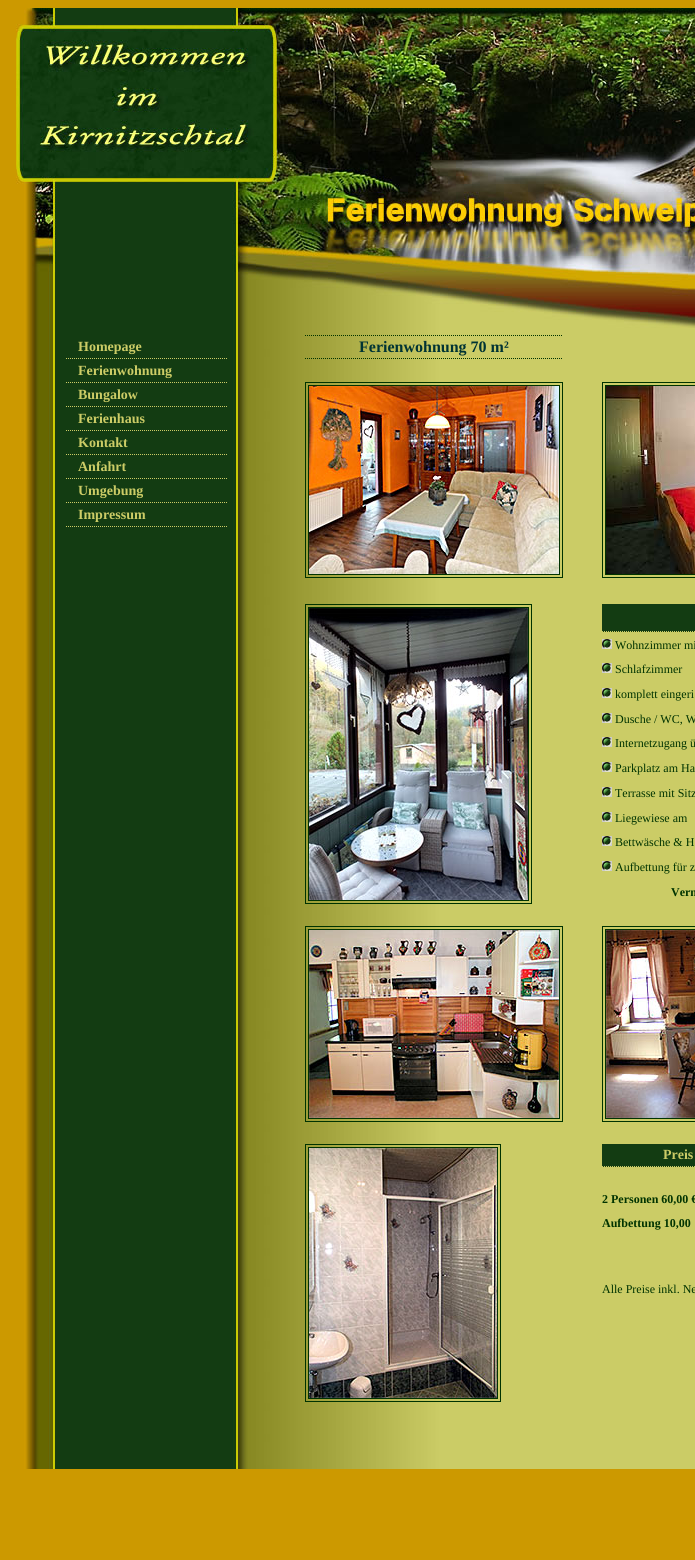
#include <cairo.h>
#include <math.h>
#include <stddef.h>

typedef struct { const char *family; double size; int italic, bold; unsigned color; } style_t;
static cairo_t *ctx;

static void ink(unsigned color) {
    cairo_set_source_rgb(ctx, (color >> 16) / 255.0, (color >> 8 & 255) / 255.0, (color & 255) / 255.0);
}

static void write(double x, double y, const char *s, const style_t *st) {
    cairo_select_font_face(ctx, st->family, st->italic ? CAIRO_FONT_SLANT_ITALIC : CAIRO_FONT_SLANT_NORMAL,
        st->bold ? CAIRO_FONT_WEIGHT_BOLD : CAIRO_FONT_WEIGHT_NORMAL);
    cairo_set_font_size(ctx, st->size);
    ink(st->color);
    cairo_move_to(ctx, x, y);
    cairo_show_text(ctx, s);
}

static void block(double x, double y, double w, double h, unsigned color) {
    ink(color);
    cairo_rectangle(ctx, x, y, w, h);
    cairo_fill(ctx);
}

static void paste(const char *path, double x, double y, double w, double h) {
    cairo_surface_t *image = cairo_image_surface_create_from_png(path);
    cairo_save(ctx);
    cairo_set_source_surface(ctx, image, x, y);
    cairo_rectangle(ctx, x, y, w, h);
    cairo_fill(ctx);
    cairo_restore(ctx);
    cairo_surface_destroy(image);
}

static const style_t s1 = {"Liberation Serif", 14, 0, 1, 0xcccc66};
static const style_t s2 = {"Liberation Serif", 16, 0, 1, 0x003333};
static const style_t s3 = {"Liberation Serif", 12, 0, 0, 0x003300};
static const style_t s4 = {"Liberation Serif", 12, 0, 1, 0x003300};

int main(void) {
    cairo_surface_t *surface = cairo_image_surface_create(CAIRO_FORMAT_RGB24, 695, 1560);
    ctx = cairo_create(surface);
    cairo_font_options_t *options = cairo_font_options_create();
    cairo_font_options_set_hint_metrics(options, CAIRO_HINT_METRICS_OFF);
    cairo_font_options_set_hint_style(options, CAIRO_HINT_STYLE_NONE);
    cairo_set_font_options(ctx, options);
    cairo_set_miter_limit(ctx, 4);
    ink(0xcc9900);
    cairo_paint(ctx);
    paste("pic1.png", 8, 8, 687, 1461);
    paste("pic2.png", 16, 8, 679, 320);
    cairo_new_path(ctx);
    cairo_move_to(ctx, 66, 358.5);
    cairo_line_to(ctx, 227, 358.5);
    ink(0xcccc66);
    cairo_set_line_width(ctx, 1);
    cairo_set_dash(ctx, (double[]){1, 1}, 2, 0);
    cairo_stroke(ctx);
    write(78, 351, "Homepage", &s1);
    cairo_new_path(ctx);
    cairo_move_to(ctx, 66, 382.5);
    cairo_line_to(ctx, 227, 382.5);
    cairo_stroke(ctx);
    write(78, 375, "Ferienwohnung", &s1);
    cairo_new_path(ctx);
    cairo_move_to(ctx, 66, 406.5);
    cairo_line_to(ctx, 227, 406.5);
    cairo_stroke(ctx);
    write(78, 399, "Bungalow", &s1);
    cairo_new_path(ctx);
    cairo_move_to(ctx, 66, 430.5);
    cairo_line_to(ctx, 227, 430.5);
    cairo_stroke(ctx);
    write(78, 423, "Ferienhaus", &s1);
    cairo_new_path(ctx);
    cairo_move_to(ctx, 66, 454.5);
    cairo_line_to(ctx, 227, 454.5);
    cairo_stroke(ctx);
    write(78, 447, "Kontakt", &s1);
    cairo_new_path(ctx);
    cairo_move_to(ctx, 66, 478.5);
    cairo_line_to(ctx, 227, 478.5);
    cairo_stroke(ctx);
    write(78, 471, "Anfahrt", &s1);
    cairo_new_path(ctx);
    cairo_move_to(ctx, 66, 502.5);
    cairo_line_to(ctx, 227, 502.5);
    cairo_stroke(ctx);
    write(78, 495, "Umgebung", &s1);
    cairo_new_path(ctx);
    cairo_move_to(ctx, 66, 526.5);
    cairo_line_to(ctx, 227, 526.5);
    cairo_stroke(ctx);
    write(78, 519, "Impressum", &s1);
    cairo_new_path(ctx);
    cairo_move_to(ctx, 305, 335.5);
    cairo_line_to(ctx, 563, 335.5);
    ink(0x003300);
    cairo_stroke(ctx);
    cairo_new_path(ctx);
    cairo_move_to(ctx, 305, 358.5);
    cairo_line_to(ctx, 563, 358.5);
    cairo_stroke(ctx);
    write(359, 352, "Ferienwohnung 70 m²", &s2);
    cairo_rectangle(ctx, 305.5, 382.5, 257, 195);
    ink(0x003300);
    cairo_set_dash(ctx, NULL, 0, 0);
    cairo_stroke(ctx);
    cairo_rectangle(ctx, 308.5, 385.5, 251, 189);
    cairo_stroke(ctx);
    paste("pic3.png", 309, 386, 250, 188);
    cairo_rectangle(ctx, 602.5, 382.5, 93, 195);
    cairo_stroke(ctx);
    cairo_rectangle(ctx, 605.5, 385.5, 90, 189);
    cairo_stroke(ctx);
    paste("pic4.png", 606, 386, 89, 188);
    cairo_rectangle(ctx, 305.5, 604.5, 226, 299);
    cairo_stroke(ctx);
    cairo_rectangle(ctx, 308.5, 607.5, 220, 293);
    cairo_stroke(ctx);
    paste("pic5.png", 309, 608, 219, 292);
    block(602, 604, 93, 28, 0x133c12);
    cairo_new_path(ctx);
    cairo_move_to(ctx, 602, 631.5);
    cairo_line_to(ctx, 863, 631.5);
    ink(0xcccc66);
    cairo_set_dash(ctx, (double[]){1, 1}, 2, 0);
    cairo_stroke(ctx);
    paste("pic6.png", 602, 639, 10, 10);
    write(615, 649, "Wohnzimmer mi", &s3);
    paste("pic6.png", 602, 663, 10, 10);
    write(615, 673, "Schlafzimmer", &s3);
    paste("pic6.png", 602, 688, 10, 10);
    write(615, 698, "komplett eingeri", &s3);
    paste("pic6.png", 602, 713, 10, 10);
    write(615, 723, "Dusche / WC, W", &s3);
    paste("pic6.png", 602, 737, 10, 10);
    write(615, 747, "Internetzugang ü", &s3);
    paste("pic6.png", 602, 762, 10, 10);
    write(615, 772, "Parkplatz am Ha", &s3);
    paste("pic6.png", 602, 787, 10, 10);
    write(615, 797, "Terrasse mit Sitz", &s3);
    paste("pic6.png", 602, 812, 10, 10);
    write(615, 822, "Liegewiese am", &s3);
    paste("pic6.png", 602, 836, 10, 10);
    write(615, 846, "Bettwäsche & H", &s3);
    paste("pic6.png", 602, 861, 10, 10);
    write(615, 871, "Aufbettung für z", &s3);
    write(671, 896, "Verm", &s4);
    cairo_rectangle(ctx, 305.5, 926.5, 257, 195);
    cairo_set_dash(ctx, NULL, 0, 0);
    cairo_stroke(ctx);
    cairo_rectangle(ctx, 308.5, 929.5, 251, 189);
    cairo_stroke(ctx);
    paste("pic7.png", 309, 930, 250, 188);
    cairo_rectangle(ctx, 602.5, 926.5, 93, 195);
    cairo_stroke(ctx);
    cairo_rectangle(ctx, 605.5, 929.5, 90, 189);
    cairo_stroke(ctx);
    paste("pic8.png", 606, 930, 89, 188);
    cairo_rectangle(ctx, 305.5, 1144.5, 195, 257);
    cairo_stroke(ctx);
    cairo_rectangle(ctx, 308.5, 1147.5, 189, 251);
    cairo_stroke(ctx);
    paste("pic9.png", 309, 1148, 188, 250);
    block(602, 1144, 93, 23, 0x133c12);
    cairo_new_path(ctx);
    cairo_move_to(ctx, 602, 1166.5);
    cairo_line_to(ctx, 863, 1166.5);
    ink(0xcccc66);
    cairo_set_dash(ctx, (double[]){1, 1}, 2, 0);
    cairo_stroke(ctx);
    write(663, 1159, "Preis", &s1);
    write(602, 1203, "2 Personen 60,00 €", &s4);
    write(602, 1227, "Aufbettung 10,00", &s4);
    write(602, 1293, "Alle Preise inkl. Ne", &s3);
    cairo_surface_write_to_png(surface, "screenshot.png");
    cairo_font_options_destroy(options);
    cairo_destroy(ctx);
    cairo_surface_destroy(surface);
    return 0;
}
